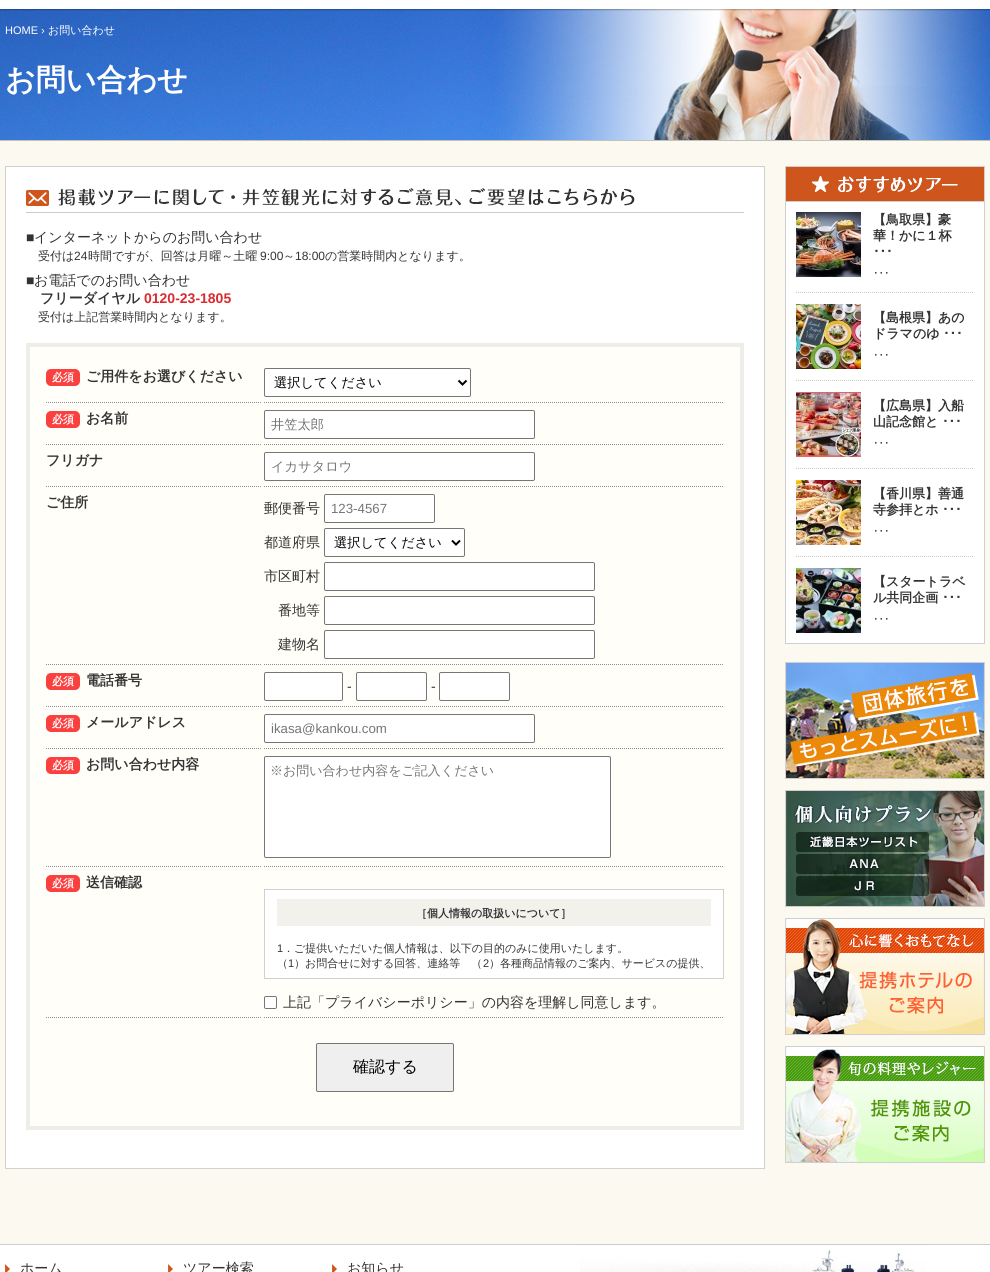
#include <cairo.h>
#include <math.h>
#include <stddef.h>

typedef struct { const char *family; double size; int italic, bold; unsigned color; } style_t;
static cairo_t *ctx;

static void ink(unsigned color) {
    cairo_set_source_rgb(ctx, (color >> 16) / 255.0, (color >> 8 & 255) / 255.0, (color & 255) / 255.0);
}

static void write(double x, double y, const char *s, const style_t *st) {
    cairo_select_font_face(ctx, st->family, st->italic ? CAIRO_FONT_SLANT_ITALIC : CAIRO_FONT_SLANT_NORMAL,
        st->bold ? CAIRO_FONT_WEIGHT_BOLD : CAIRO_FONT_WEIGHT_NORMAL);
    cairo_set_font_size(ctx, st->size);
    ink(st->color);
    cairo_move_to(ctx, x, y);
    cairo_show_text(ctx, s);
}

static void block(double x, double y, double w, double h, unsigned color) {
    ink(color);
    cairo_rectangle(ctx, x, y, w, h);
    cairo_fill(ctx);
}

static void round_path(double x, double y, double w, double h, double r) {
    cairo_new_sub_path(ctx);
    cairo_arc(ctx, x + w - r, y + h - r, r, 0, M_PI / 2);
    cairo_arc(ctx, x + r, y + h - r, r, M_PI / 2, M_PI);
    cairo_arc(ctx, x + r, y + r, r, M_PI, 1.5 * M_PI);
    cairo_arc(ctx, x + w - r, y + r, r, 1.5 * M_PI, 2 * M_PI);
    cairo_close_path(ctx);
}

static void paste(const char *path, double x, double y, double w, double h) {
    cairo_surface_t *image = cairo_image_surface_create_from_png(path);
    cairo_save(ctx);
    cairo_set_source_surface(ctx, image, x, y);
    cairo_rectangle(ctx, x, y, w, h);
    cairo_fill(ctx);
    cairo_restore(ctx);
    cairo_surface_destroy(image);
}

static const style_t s1 = {"Liberation Sans", 11, 0, 0, 0xffffff};
static const style_t s2 = {"WenQuanYi Zen Hei Medium", 11, 0, 0, 0xffffff};
static const style_t s3 = {"WenQuanYi Zen Hei", 30, 0, 1, 0xffffff};
static const style_t s4 = {"Liberation Sans", 14, 0, 0, 0x333333};
static const style_t s5 = {"WenQuanYi Zen Hei Medium", 14, 0, 0, 0x333333};
static const style_t s6 = {"WenQuanYi Zen Hei Medium", 12, 0, 0, 0x333333};
static const style_t s7 = {"Liberation Sans", 12, 0, 0, 0x333333};
static const style_t s8 = {"WenQuanYi Zen Hei", 14, 0, 1, 0x333333};
static const style_t s9 = {"Liberation Sans", 14, 0, 1, 0xd92b2e};
static const style_t s10 = {"WenQuanYi Zen Hei", 11, 0, 1, 0xffffff};
static const style_t s11 = {"WenQuanYi Zen Hei Medium", 13.25, 0, 0, 0x000000};
static const style_t s12 = {"WenQuanYi Zen Hei Medium", 13.25, 0, 0, 0x757575};
static const style_t s13 = {"Liberation Sans", 13.25, 0, 0, 0x757575};
static const style_t s14 = {"WenQuanYi Zen Hei Medium", 13, 0, 0, 0x757575};
static const style_t s15 = {"WenQuanYi Zen Hei", 11, 0, 1, 0x333333};
static const style_t s16 = {"Liberation Sans", 11, 0, 0, 0x333333};
static const style_t s17 = {"WenQuanYi Zen Hei Medium", 11, 0, 0, 0x333333};
static const style_t s18 = {"WenQuanYi Zen Hei Medium", 16, 0, 0, 0x000000};
static const style_t s19 = {"WenQuanYi Zen Hei", 13, 0, 1, 0x333333};
static const style_t s20 = {"IPAPGothic", 13, 0, 1, 0x333333};
static const style_t s21 = {"IPAPGothic", 11, 0, 0, 0x333333};

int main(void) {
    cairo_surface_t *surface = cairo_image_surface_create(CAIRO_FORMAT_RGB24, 990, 1272);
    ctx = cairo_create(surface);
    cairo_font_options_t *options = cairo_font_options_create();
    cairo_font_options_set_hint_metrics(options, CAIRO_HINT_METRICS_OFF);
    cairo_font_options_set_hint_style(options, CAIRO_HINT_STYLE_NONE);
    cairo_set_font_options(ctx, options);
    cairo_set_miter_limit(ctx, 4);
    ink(0xfcf9f0);
    cairo_paint(ctx);
    block(0, 0, 990, 9, 0xffffff);
    paste("pic1.png", 0, 9, 990, 131);
    write(5, 34, "HOME ›", &s1);
    write(48, 34, "お問い合わせ", &s2);
    write(5, 90, "お問い合わせ", &s3);
    block(0, 140, 990, 1, 0xc2c2bd);
    ink(0xffffff);
    cairo_rectangle(ctx, 5.5, 166.5, 759, 1002);
    cairo_fill_preserve(ctx);
    ink(0xd2d1d0);
    cairo_set_line_width(ctx, 1);
    cairo_stroke(ctx);
    paste("pic2.png", 26, 188, 718, 25);
    write(26, 242, "■", &s4);
    write(34, 242, "インターネットからのお問い合わせ", &s5);
    write(38, 260, "受付は", &s6);
    write(74, 260, "24", &s7);
    write(88, 260, "時間ですが、回答は月曜～土曜", &s6);
    write(260, 260, "9:00", &s7);
    write(283, 260, "～", &s6);
    write(295, 260, "18:00", &s7);
    write(325, 260, "の営業時間内となります。", &s6);
    write(26, 285, "■", &s4);
    write(34, 285, "お電話でのお問い合わせ", &s5);
    write(40, 303, "フリーダイヤル", &s8);
    write(144, 303, "0120-23-1805", &s9);
    write(38, 321, "受付は上記営業時間内となります。", &s6);
    ink(0xfffef9);
    cairo_rectangle(ctx, 28, 345, 714, 783);
    cairo_fill_preserve(ctx);
    ink(0xeeede9);
    cairo_set_line_width(ctx, 4);
    cairo_stroke(ctx);
    cairo_new_path(ctx);
    cairo_move_to(ctx, 46, 402.5);
    cairo_line_to(ctx, 262, 402.5);
    ink(0x8f8d8d);
    cairo_set_line_width(ctx, 1);
    cairo_set_dash(ctx, (double[]){1, 1}, 2, 0);
    cairo_stroke(ctx);
    ink(0xfb4040);
    round_path(46, 369, 34, 17, 5);
    cairo_fill(ctx);
    write(52, 381, "必須", &s10);
    write(86, 381, "ご用件をお選びください", &s8);
    cairo_new_path(ctx);
    cairo_move_to(ctx, 264, 402.5);
    cairo_line_to(ctx, 724, 402.5);
    ink(0x8f8d8d);
    cairo_stroke(ctx);
    ink(0xffffff);
    round_path(264.5, 368.5, 206, 28, 1.5);
    cairo_fill_preserve(ctx);
    ink(0x767676);
    cairo_set_dash(ctx, NULL, 0, 0);
    cairo_stroke(ctx);
    cairo_new_path(ctx);
    cairo_move_to(ctx, 458.5, 380.5);
    cairo_line_to(ctx, 462.5, 384.5);
    cairo_line_to(ctx, 466.5, 380.5);
    ink(0x000000);
    cairo_set_line_width(ctx, 2);
    cairo_stroke(ctx);
    write(274, 387, "選択してください", &s11);
    cairo_new_path(ctx);
    cairo_move_to(ctx, 46, 444.5);
    cairo_line_to(ctx, 262, 444.5);
    ink(0x8f8d8d);
    cairo_set_line_width(ctx, 1);
    cairo_set_dash(ctx, (double[]){1, 1}, 2, 0);
    cairo_stroke(ctx);
    ink(0xfb4040);
    round_path(46, 411, 34, 17, 5);
    cairo_fill(ctx);
    write(52, 423, "必須", &s10);
    write(86, 423, "お名前", &s8);
    cairo_new_path(ctx);
    cairo_move_to(ctx, 264, 444.5);
    cairo_line_to(ctx, 724, 444.5);
    ink(0x8f8d8d);
    cairo_stroke(ctx);
    ink(0xffffff);
    round_path(264.5, 410.5, 270, 28, 1.5);
    cairo_fill_preserve(ctx);
    ink(0x767676);
    cairo_set_dash(ctx, NULL, 0, 0);
    cairo_stroke(ctx);
    write(271, 429, "井笠太郎", &s12);
    cairo_new_path(ctx);
    cairo_move_to(ctx, 46, 486.5);
    cairo_line_to(ctx, 262, 486.5);
    ink(0x8f8d8d);
    cairo_set_dash(ctx, (double[]){1, 1}, 2, 0);
    cairo_stroke(ctx);
    write(46, 465, "フリガナ", &s8);
    cairo_new_path(ctx);
    cairo_move_to(ctx, 264, 486.5);
    cairo_line_to(ctx, 724, 486.5);
    ink(0x8f8d8d);
    cairo_stroke(ctx);
    ink(0xffffff);
    round_path(264.5, 452.5, 270, 28, 1.5);
    cairo_fill_preserve(ctx);
    ink(0x767676);
    cairo_set_dash(ctx, NULL, 0, 0);
    cairo_stroke(ctx);
    write(271, 471, "イカサタロウ", &s12);
    cairo_new_path(ctx);
    cairo_move_to(ctx, 46, 664.5);
    cairo_line_to(ctx, 262, 664.5);
    ink(0x8f8d8d);
    cairo_set_dash(ctx, (double[]){1, 1}, 2, 0);
    cairo_stroke(ctx);
    write(46, 507, "ご住所", &s8);
    cairo_new_path(ctx);
    cairo_move_to(ctx, 264, 664.5);
    cairo_line_to(ctx, 724, 664.5);
    ink(0x8f8d8d);
    cairo_stroke(ctx);
    write(264, 513, "郵便番号", &s5);
    ink(0xffffff);
    round_path(324.5, 494.5, 110, 28, 1.5);
    cairo_fill_preserve(ctx);
    ink(0x767676);
    cairo_set_dash(ctx, NULL, 0, 0);
    cairo_stroke(ctx);
    write(331, 513, "123-4567", &s13);
    write(264, 547, "都道府県", &s5);
    ink(0xffffff);
    round_path(324.5, 528.5, 140, 28, 1.5);
    cairo_fill_preserve(ctx);
    ink(0x767676);
    cairo_stroke(ctx);
    cairo_new_path(ctx);
    cairo_move_to(ctx, 452, 540.5);
    cairo_line_to(ctx, 456, 544.5);
    cairo_line_to(ctx, 460, 540.5);
    ink(0x000000);
    cairo_set_line_width(ctx, 2);
    cairo_stroke(ctx);
    write(334, 547, "選択してください", &s11);
    write(264, 581, "市区町村", &s5);
    ink(0xffffff);
    round_path(324.5, 562.5, 270, 28, 1.5);
    cairo_fill_preserve(ctx);
    ink(0x767676);
    cairo_set_line_width(ctx, 1);
    cairo_stroke(ctx);
    write(278, 615, "番地等", &s5);
    ink(0xffffff);
    round_path(324.5, 596.5, 270, 28, 1.5);
    cairo_fill_preserve(ctx);
    ink(0x767676);
    cairo_stroke(ctx);
    write(278, 649, "建物名", &s5);
    ink(0xffffff);
    round_path(324.5, 630.5, 270, 28, 1.5);
    cairo_fill_preserve(ctx);
    ink(0x767676);
    cairo_stroke(ctx);
    cairo_new_path(ctx);
    cairo_move_to(ctx, 46, 706.5);
    cairo_line_to(ctx, 262, 706.5);
    ink(0x8f8d8d);
    cairo_set_dash(ctx, (double[]){1, 1}, 2, 0);
    cairo_stroke(ctx);
    ink(0xfb4040);
    round_path(46, 673, 34, 17, 5);
    cairo_fill(ctx);
    write(52, 685, "必須", &s10);
    write(86, 685, "電話番号", &s8);
    cairo_new_path(ctx);
    cairo_move_to(ctx, 264, 706.5);
    cairo_line_to(ctx, 724, 706.5);
    ink(0x8f8d8d);
    cairo_stroke(ctx);
    ink(0xffffff);
    round_path(264.5, 672.5, 78, 28, 1.5);
    cairo_fill_preserve(ctx);
    ink(0x767676);
    cairo_set_dash(ctx, NULL, 0, 0);
    cairo_stroke(ctx);
    write(347, 691, "-", &s4);
    ink(0xffffff);
    round_path(356.5, 672.5, 70, 28, 1.5);
    cairo_fill_preserve(ctx);
    ink(0x767676);
    cairo_stroke(ctx);
    write(431, 691, "-", &s4);
    ink(0xffffff);
    round_path(439.5, 672.5, 70, 28, 1.5);
    cairo_fill_preserve(ctx);
    ink(0x767676);
    cairo_stroke(ctx);
    cairo_new_path(ctx);
    cairo_move_to(ctx, 46, 748.5);
    cairo_line_to(ctx, 262, 748.5);
    ink(0x8f8d8d);
    cairo_set_dash(ctx, (double[]){1, 1}, 2, 0);
    cairo_stroke(ctx);
    ink(0xfb4040);
    round_path(46, 715, 34, 17, 5);
    cairo_fill(ctx);
    write(52, 727, "必須", &s10);
    write(86, 727, "メールアドレス", &s8);
    cairo_new_path(ctx);
    cairo_move_to(ctx, 264, 748.5);
    cairo_line_to(ctx, 724, 748.5);
    ink(0x8f8d8d);
    cairo_stroke(ctx);
    ink(0xffffff);
    round_path(264.5, 714.5, 270, 28, 1.5);
    cairo_fill_preserve(ctx);
    ink(0x767676);
    cairo_set_dash(ctx, NULL, 0, 0);
    cairo_stroke(ctx);
    write(271, 733, "ikasa@kankou.com", &s13);
    cairo_new_path(ctx);
    cairo_move_to(ctx, 46, 866.5);
    cairo_line_to(ctx, 262, 866.5);
    ink(0x8f8d8d);
    cairo_set_dash(ctx, (double[]){1, 1}, 2, 0);
    cairo_stroke(ctx);
    ink(0xfb4040);
    round_path(46, 757, 34, 17, 5);
    cairo_fill(ctx);
    write(52, 769, "必須", &s10);
    write(86, 769, "お問い合わせ内容", &s8);
    cairo_new_path(ctx);
    cairo_move_to(ctx, 264, 866.5);
    cairo_line_to(ctx, 724, 866.5);
    ink(0x8f8d8d);
    cairo_stroke(ctx);
    ink(0xffffff);
    round_path(264.5, 756.5, 346, 101, 1.5);
    cairo_fill_preserve(ctx);
    ink(0x767676);
    cairo_set_dash(ctx, NULL, 0, 0);
    cairo_stroke(ctx);
    write(270, 775, "※お問い合わせ内容をご記入ください", &s14);
    cairo_new_path(ctx);
    cairo_move_to(ctx, 46, 1017.5);
    cairo_line_to(ctx, 262, 1017.5);
    ink(0x8f8d8d);
    cairo_set_dash(ctx, (double[]){1, 1}, 2, 0);
    cairo_stroke(ctx);
    ink(0xfb4040);
    round_path(46, 875, 34, 17, 5);
    cairo_fill(ctx);
    write(52, 887, "必須", &s10);
    write(86, 887, "送信確認", &s8);
    cairo_new_path(ctx);
    cairo_move_to(ctx, 264, 1017.5);
    cairo_line_to(ctx, 724, 1017.5);
    ink(0x8f8d8d);
    cairo_stroke(ctx);
    ink(0xffffff);
    cairo_rectangle(ctx, 264.5, 889.5, 459, 89);
    cairo_fill_preserve(ctx);
    ink(0xd0d0cf);
    cairo_set_dash(ctx, NULL, 0, 0);
    cairo_stroke(ctx);
    block(277, 899, 434, 27, 0xf2f1ec);
    write(416, 917, "［個人情報の取扱いについて］", &s15);
    write(277, 952, "1", &s16);
    write(283, 952, "．ご提供いただいた個人情報は、以下の目的のみに使用いたします。", &s17);
    write(277, 967, "（", &s17);
    write(288, 967, "1", &s16);
    write(294, 967, "）お問合せに対する回答、連絡等　（", &s17);
    write(483, 967, "2", &s16);
    write(489, 967, "）各種商品情報のご案内、サービスの提供、", &s17);
    ink(0xffffff);
    round_path(264.5, 996.5, 12, 12, 1.5);
    cairo_fill_preserve(ctx);
    ink(0x767676);
    cairo_stroke(ctx);
    write(283, 1007, "上記「プライバシーポリシー」の内容を理解し同意します。", &s5);
    ink(0xefefef);
    round_path(316.5, 1043.5, 137, 48, 1.5);
    cairo_fill_preserve(ctx);
    ink(0x767676);
    cairo_stroke(ctx);
    write(353, 1072, "確認する", &s18);
    cairo_rectangle(ctx, 785.5, 166.5, 199, 477);
    ink(0xcfcfce);
    cairo_stroke(ctx);
    block(786, 201, 198, 1, 0xcfcfce);
    paste("pic3.png", 786, 167, 198, 34);
    block(786, 202, 198, 441, 0xffffff);
    cairo_new_path(ctx);
    cairo_move_to(ctx, 796, 292.5);
    cairo_line_to(ctx, 974, 292.5);
    ink(0xcdcbc4);
    cairo_set_dash(ctx, (double[]){1, 1}, 2, 0);
    cairo_stroke(ctx);
    paste("pic4.png", 796, 212, 65, 65);
    write(873, 224, "【鳥取県】豪", &s19);
    write(873, 240, "華！かに１杯", &s19);
    write(873, 256, "･･･", &s20);
    write(873, 277, "･･･", &s21);
    cairo_new_path(ctx);
    cairo_move_to(ctx, 796, 380.5);
    cairo_line_to(ctx, 974, 380.5);
    ink(0xcdcbc4);
    cairo_stroke(ctx);
    paste("pic5.png", 796, 304, 65, 65);
    write(873, 322, "【島根県】あの", &s19);
    write(873, 338, "ドラマのゆ", &s19);
    write(943, 338, "･･･", &s20);
    write(873, 359, "･･･", &s21);
    cairo_new_path(ctx);
    cairo_move_to(ctx, 796, 468.5);
    cairo_line_to(ctx, 974, 468.5);
    ink(0xcdcbc4);
    cairo_stroke(ctx);
    paste("pic6.png", 796, 392, 65, 65);
    write(873, 410, "【広島県】入船", &s19);
    write(873, 426, "山記念館と", &s19);
    write(942, 426, "･･･", &s20);
    write(873, 447, "･･･", &s21);
    cairo_new_path(ctx);
    cairo_move_to(ctx, 796, 556.5);
    cairo_line_to(ctx, 974, 556.5);
    ink(0xcdcbc4);
    cairo_stroke(ctx);
    paste("pic7.png", 796, 480, 65, 65);
    write(873, 498, "【香川県】善通", &s19);
    write(873, 514, "寺参拝とホ", &s19);
    write(942, 514, "･･･", &s20);
    write(873, 535, "･･･", &s21);
    paste("pic8.png", 796, 568, 65, 65);
    write(873, 586, "【スタートラベ", &s19);
    write(873, 602, "ル共同企画", &s19);
    write(942, 602, "･･･", &s20);
    write(873, 623, "･･･", &s21);
    paste("pic9.png", 785, 662, 200, 117);
    paste("pic10.png", 785, 790, 200, 117);
    paste("pic11.png", 785, 918, 200, 117);
    paste("pic12.png", 785, 1046, 200, 117);
    block(0, 1245, 990, 27, 0xffffff);
    block(0, 1244, 990, 1, 0xcdcdcd);
    paste("pic13.png", 580, 1245, 346, 27);
    paste("pic14.png", 5, 1264, 5, 8);
    write(20, 1273, "ホーム", &s5);
    paste("pic14.png", 168, 1264, 5, 8);
    write(183, 1273, "ツアー検索", &s5);
    paste("pic14.png", 332, 1264, 5, 8);
    write(347, 1273, "お知らせ", &s5);
    cairo_surface_write_to_png(surface, "screenshot.png");
    cairo_font_options_destroy(options);
    cairo_destroy(ctx);
    cairo_surface_destroy(surface);
    return 0;
}
